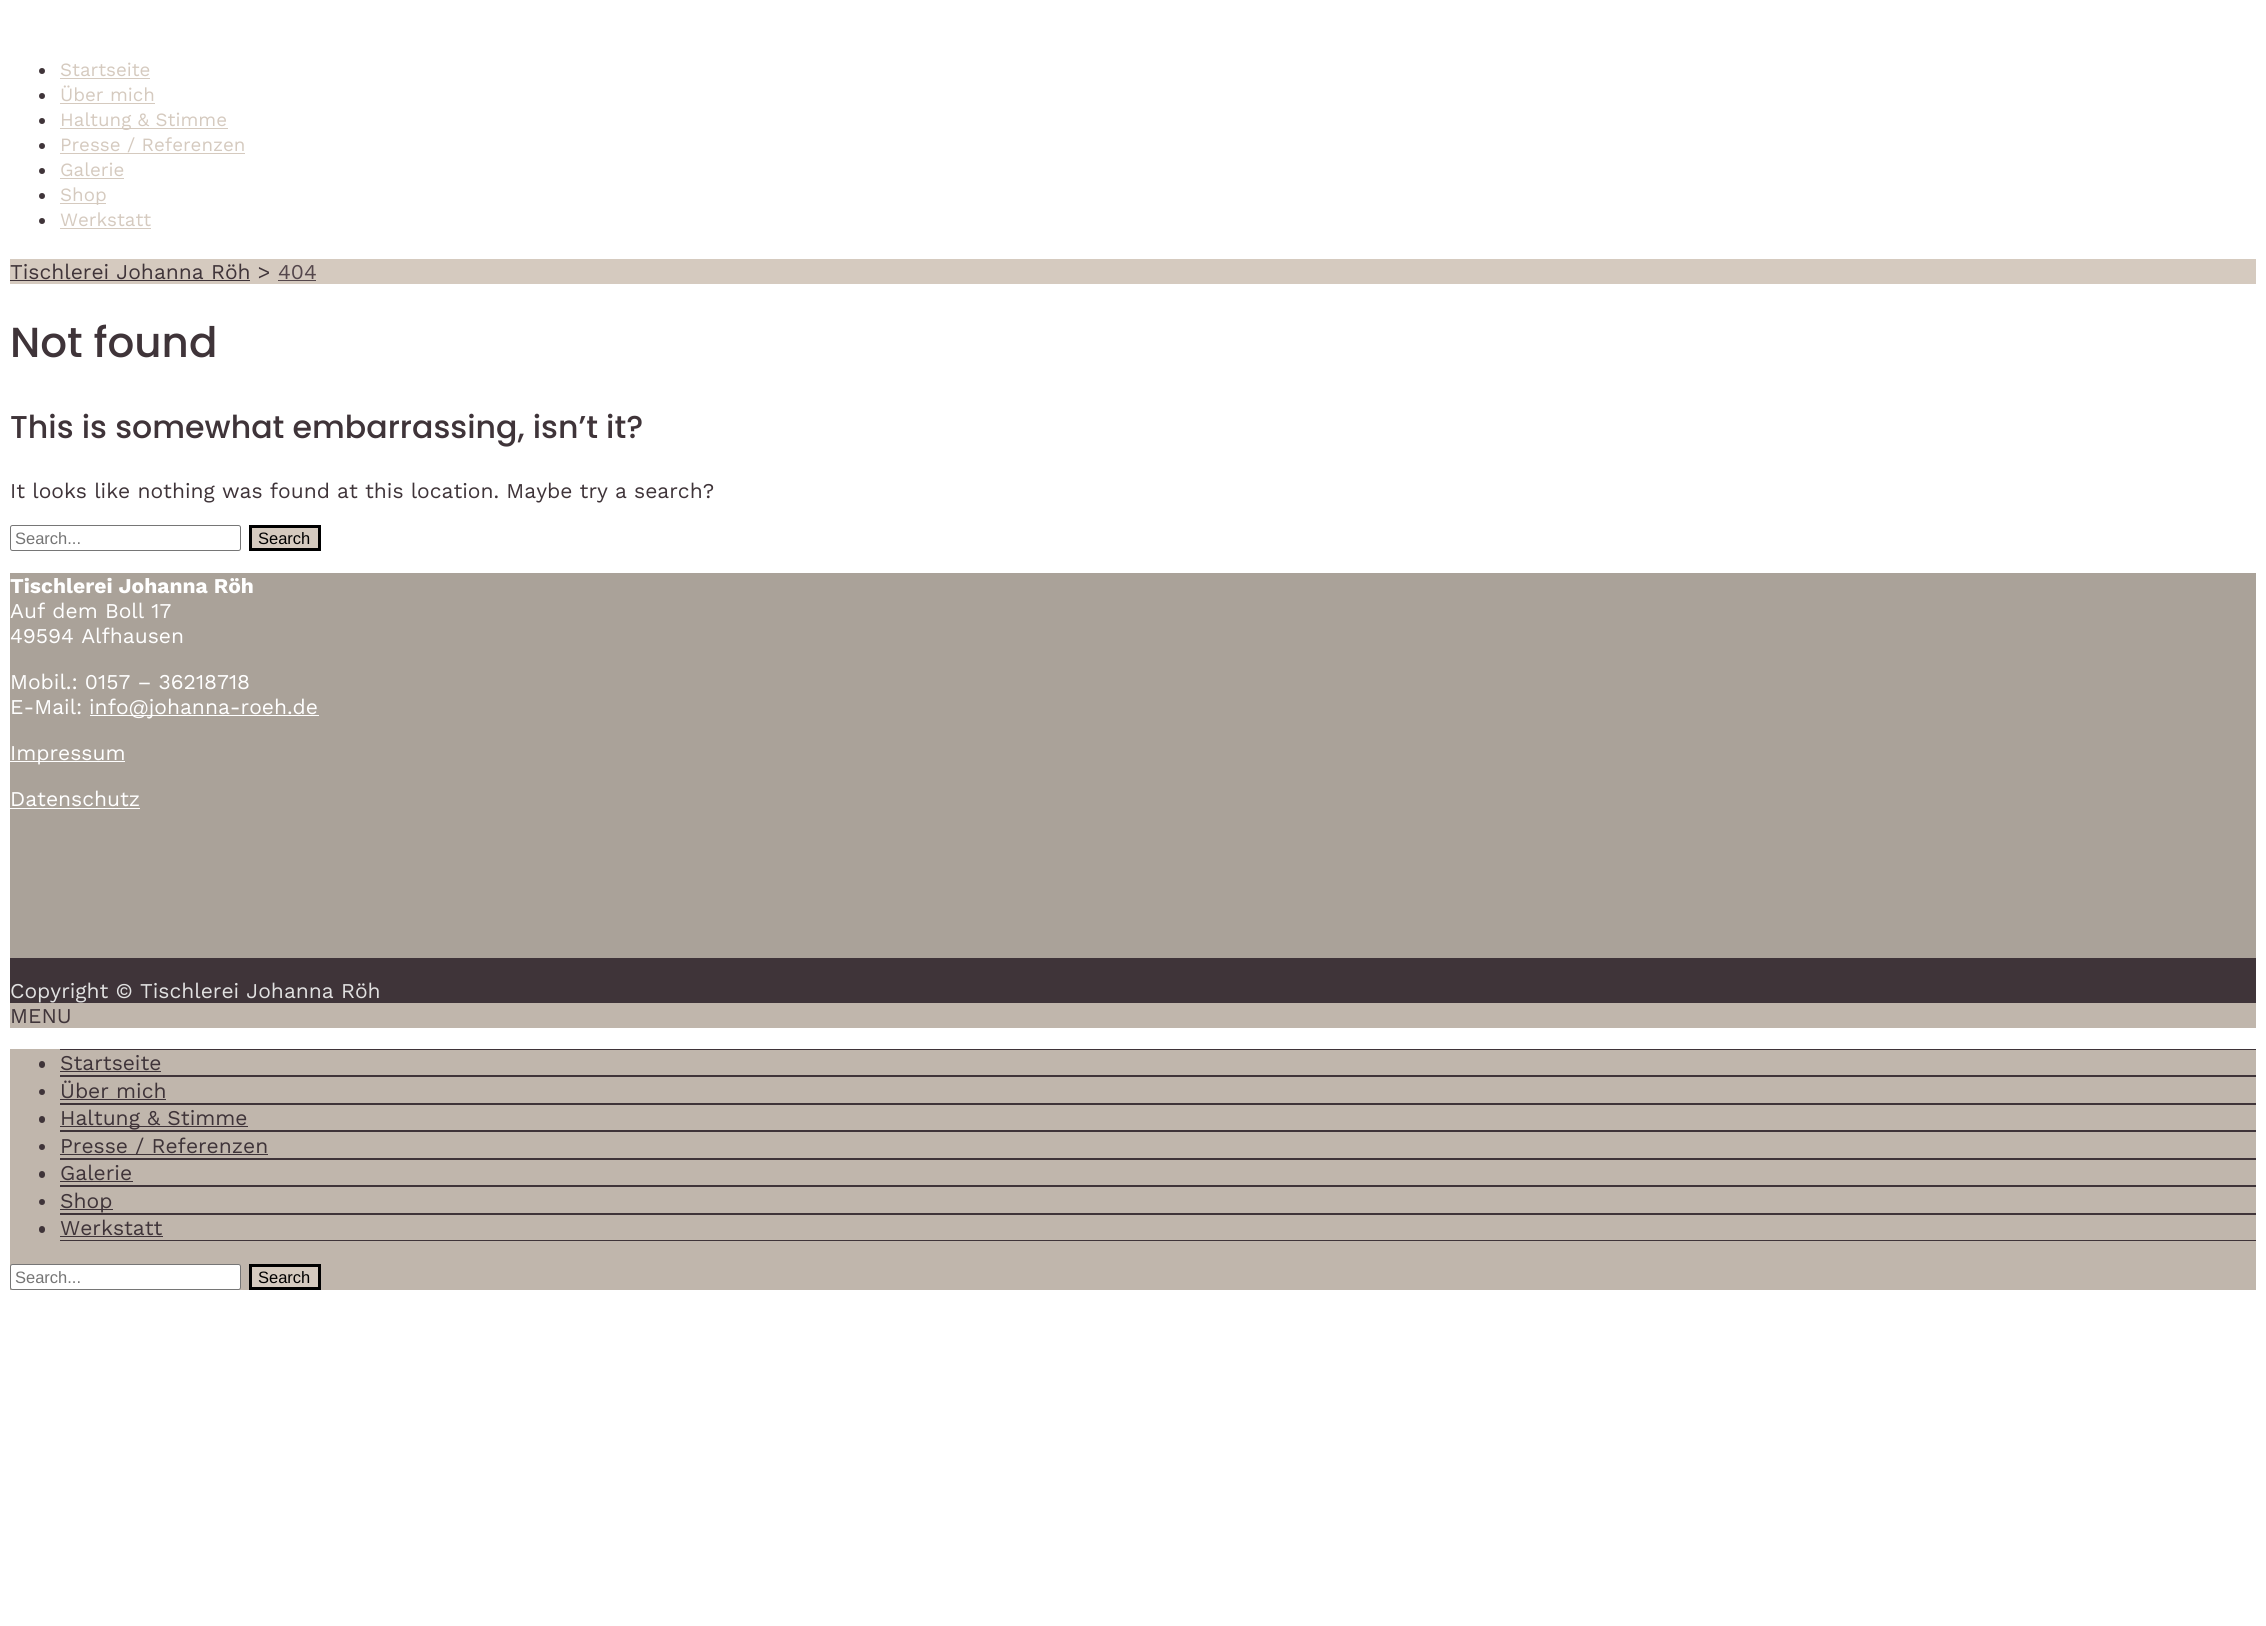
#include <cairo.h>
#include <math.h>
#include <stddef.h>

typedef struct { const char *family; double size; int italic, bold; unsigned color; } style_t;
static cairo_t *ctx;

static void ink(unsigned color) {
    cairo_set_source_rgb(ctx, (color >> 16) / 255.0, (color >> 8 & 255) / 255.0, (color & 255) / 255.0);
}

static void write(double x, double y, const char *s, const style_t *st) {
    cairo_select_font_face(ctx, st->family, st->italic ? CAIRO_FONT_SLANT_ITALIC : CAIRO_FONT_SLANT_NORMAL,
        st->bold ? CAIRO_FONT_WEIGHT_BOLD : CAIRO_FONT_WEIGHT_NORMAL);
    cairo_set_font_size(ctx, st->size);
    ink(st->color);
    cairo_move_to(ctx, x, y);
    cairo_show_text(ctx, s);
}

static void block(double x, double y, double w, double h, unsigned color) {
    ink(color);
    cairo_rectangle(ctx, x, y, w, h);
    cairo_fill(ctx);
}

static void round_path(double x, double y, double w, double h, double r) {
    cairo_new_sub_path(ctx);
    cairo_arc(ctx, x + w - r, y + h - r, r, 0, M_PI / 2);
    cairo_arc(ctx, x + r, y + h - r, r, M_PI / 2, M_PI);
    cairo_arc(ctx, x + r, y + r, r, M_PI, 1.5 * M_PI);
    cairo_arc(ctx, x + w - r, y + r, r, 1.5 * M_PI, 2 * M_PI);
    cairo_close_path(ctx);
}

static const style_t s1 = {"Work Sans", 18.75, 0, 0, 0xd5cabf};
static const style_t s2 = {"Work Sans", 21.05, 0, 0, 0x3f3439};
static const style_t s3 = {"Work Sans", 21.05, 0, 0, 0x55474c};
static const style_t s4 = {"Poppins Medium", 42, 0, 0, 0x3f3439};
static const style_t s5 = {"Poppins Medium", 31.6, 0, 0, 0x3f3439};
static const style_t s6 = {"Liberation Sans", 16.5, 0, 0, 0x757575};
static const style_t s7 = {"Liberation Sans", 16.5, 0, 0, 0x000000};
static const style_t s8 = {"Work Sans", 21.05, 0, 1, 0xffffff};
static const style_t s9 = {"Work Sans", 21.05, 0, 0, 0xffffff};
static const style_t s10 = {"Work Sans", 21.05, 0, 0, 0xe1e1e1};

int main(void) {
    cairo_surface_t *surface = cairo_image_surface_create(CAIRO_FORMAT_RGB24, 2266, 1626);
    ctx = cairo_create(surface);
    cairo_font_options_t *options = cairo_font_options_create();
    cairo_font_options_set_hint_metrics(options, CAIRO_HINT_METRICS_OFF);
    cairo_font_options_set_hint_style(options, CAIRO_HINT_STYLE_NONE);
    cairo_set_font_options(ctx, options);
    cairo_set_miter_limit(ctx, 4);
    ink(0xffffff);
    cairo_paint(ctx);
    ink(0x3f3439);
    cairo_arc(ctx, 42, 71, 3, 0, 2 * M_PI);
    cairo_fill(ctx);
    write(60, 76, "Startseite", &s1);
    block(60, 78, 90, 1, 0xd5cabf);
    ink(0x3f3439);
    cairo_new_path(ctx);
    cairo_arc(ctx, 42, 96, 3, 0, 2 * M_PI);
    cairo_fill(ctx);
    write(60, 101, "Über mich", &s1);
    block(60, 103, 95, 1, 0xd5cabf);
    ink(0x3f3439);
    cairo_new_path(ctx);
    cairo_arc(ctx, 42, 121, 3, 0, 2 * M_PI);
    cairo_fill(ctx);
    block(60, 128, 168, 1, 0xd5cabf);
    write(60, 126, "Haltung & Stimme", &s1);
    ink(0x3f3439);
    cairo_new_path(ctx);
    cairo_arc(ctx, 42, 146, 3, 0, 2 * M_PI);
    cairo_fill(ctx);
    write(60, 151, "Presse / Referenzen", &s1);
    block(60, 153, 185, 1, 0xd5cabf);
    ink(0x3f3439);
    cairo_new_path(ctx);
    cairo_arc(ctx, 42, 171, 3, 0, 2 * M_PI);
    cairo_fill(ctx);
    write(60, 176, "Galerie", &s1);
    block(60, 178, 64, 1, 0xd5cabf);
    ink(0x3f3439);
    cairo_new_path(ctx);
    cairo_arc(ctx, 42, 196, 3, 0, 2 * M_PI);
    cairo_fill(ctx);
    block(60, 203, 46, 1, 0xd5cabf);
    write(60, 201, "Shop", &s1);
    ink(0x3f3439);
    cairo_new_path(ctx);
    cairo_arc(ctx, 42, 221, 3, 0, 2 * M_PI);
    cairo_fill(ctx);
    write(60, 226, "Werkstatt", &s1);
    block(60, 228, 91, 1, 0xd5cabf);
    block(10, 259, 2246, 25, 0xd5cabf);
    write(10, 279, "Tischlerei Johanna Röh >", &s2);
    block(10, 280, 240, 1, 0x3f3439);
    write(278, 279, "404", &s3);
    block(278, 280, 38, 1, 0x55474c);
    write(10, 357, "Not found", &s4);
    write(10, 438, "This is somewhat embarrassing, isn’t it?", &s5);
    write(10, 498, "It looks like nothing was found at this location. Maybe try a search?", &s2);
    round_path(10.5, 525.5, 230, 25, 2);
    ink(0x767676);
    cairo_set_line_width(ctx, 1);
    cairo_stroke(ctx);
    write(15, 544, "Search...", &s6);
    ink(0xd5cabf);
    cairo_rectangle(ctx, 250.5, 526.5, 69, 23);
    cairo_fill_preserve(ctx);
    ink(0x000000);
    cairo_set_line_width(ctx, 3);
    cairo_stroke(ctx);
    write(258, 544, "Search", &s7);
    block(10, 958, 2246, 45, 0x3f3439);
    block(10, 573, 2246, 385, 0xaaa299);
    write(10, 593, "Tischlerei Johanna Röh", &s8);
    write(10, 618, "Auf dem Boll 17", &s9);
    write(10, 643, "49594 Alfhausen", &s9);
    write(10, 689, "Mobil.: 0157 – 36218718", &s9);
    write(10, 714, "E-Mail:", &s9);
    block(90, 715, 229, 1, 0xffffff);
    write(89, 714, "info@johanna-roeh.de", &s9);
    block(10, 761, 115, 1, 0xffffff);
    write(10, 760, "Impressum", &s9);
    write(10, 806, "Datenschutz", &s9);
    block(10, 808, 130, 1, 0xffffff);
    write(10, 998, "Copyright © Tischlerei Johanna Röh", &s10);
    block(10, 1003, 2246, 25, 0xc0b6ac);
    write(10, 1023, "MENU", &s2);
    block(10, 1049, 2246, 241, 0xc0b6ac);
    block(60, 1049, 2196, 1, 0x3f3439);
    block(60, 1075, 2196, 2, 0x3f3439);
    round_path(39, 1061, 6, 7, 3);
    cairo_fill(ctx);
    write(60, 1070, "Startseite", &s2);
    block(60, 1071, 101, 1, 0x3f3439);
    block(60, 1103, 2196, 2, 0x3f3439);
    cairo_new_path(ctx);
    cairo_arc(ctx, 42, 1092, 3, 0, 2 * M_PI);
    cairo_fill(ctx);
    write(60, 1098, "Über mich", &s2);
    block(60, 1099, 106, 1, 0x3f3439);
    block(60, 1130, 2196, 2, 0x3f3439);
    round_path(39, 1116, 6, 7, 3);
    cairo_fill(ctx);
    block(60, 1126, 188, 1, 0x3f3439);
    write(60, 1125, "Haltung & Stimme", &s2);
    block(60, 1158, 2196, 2, 0x3f3439);
    cairo_new_path(ctx);
    cairo_arc(ctx, 42, 1147, 3, 0, 2 * M_PI);
    cairo_fill(ctx);
    block(60, 1154, 208, 1, 0x3f3439);
    write(60, 1153, "Presse / Referenzen", &s2);
    block(60, 1185, 2196, 2, 0x3f3439);
    round_path(39, 1171, 6, 7, 3);
    cairo_fill(ctx);
    write(60, 1180, "Galerie", &s2);
    block(60, 1181, 73, 1, 0x3f3439);
    block(60, 1213, 2196, 2, 0x3f3439);
    cairo_new_path(ctx);
    cairo_arc(ctx, 42, 1202, 3, 0, 2 * M_PI);
    cairo_fill(ctx);
    block(60, 1209, 53, 1, 0x3f3439);
    write(60, 1208, "Shop", &s2);
    block(60, 1240, 2196, 1, 0x3f3439);
    round_path(39, 1226, 6, 7, 3);
    cairo_fill(ctx);
    write(60, 1235, "Werkstatt", &s2);
    block(60, 1236, 103, 1, 0x3f3439);
    ink(0xffffff);
    round_path(10.5, 1264.5, 230, 25, 2);
    cairo_fill_preserve(ctx);
    ink(0x767676);
    cairo_set_line_width(ctx, 1);
    cairo_stroke(ctx);
    write(15, 1283, "Search...", &s6);
    ink(0xd5cabf);
    cairo_rectangle(ctx, 250.5, 1265.5, 69, 23);
    cairo_fill_preserve(ctx);
    ink(0x000000);
    cairo_set_line_width(ctx, 3);
    cairo_stroke(ctx);
    write(258, 1283, "Search", &s7);
    cairo_surface_write_to_png(surface, "screenshot.png");
    cairo_font_options_destroy(options);
    cairo_destroy(ctx);
    cairo_surface_destroy(surface);
    return 0;
}
